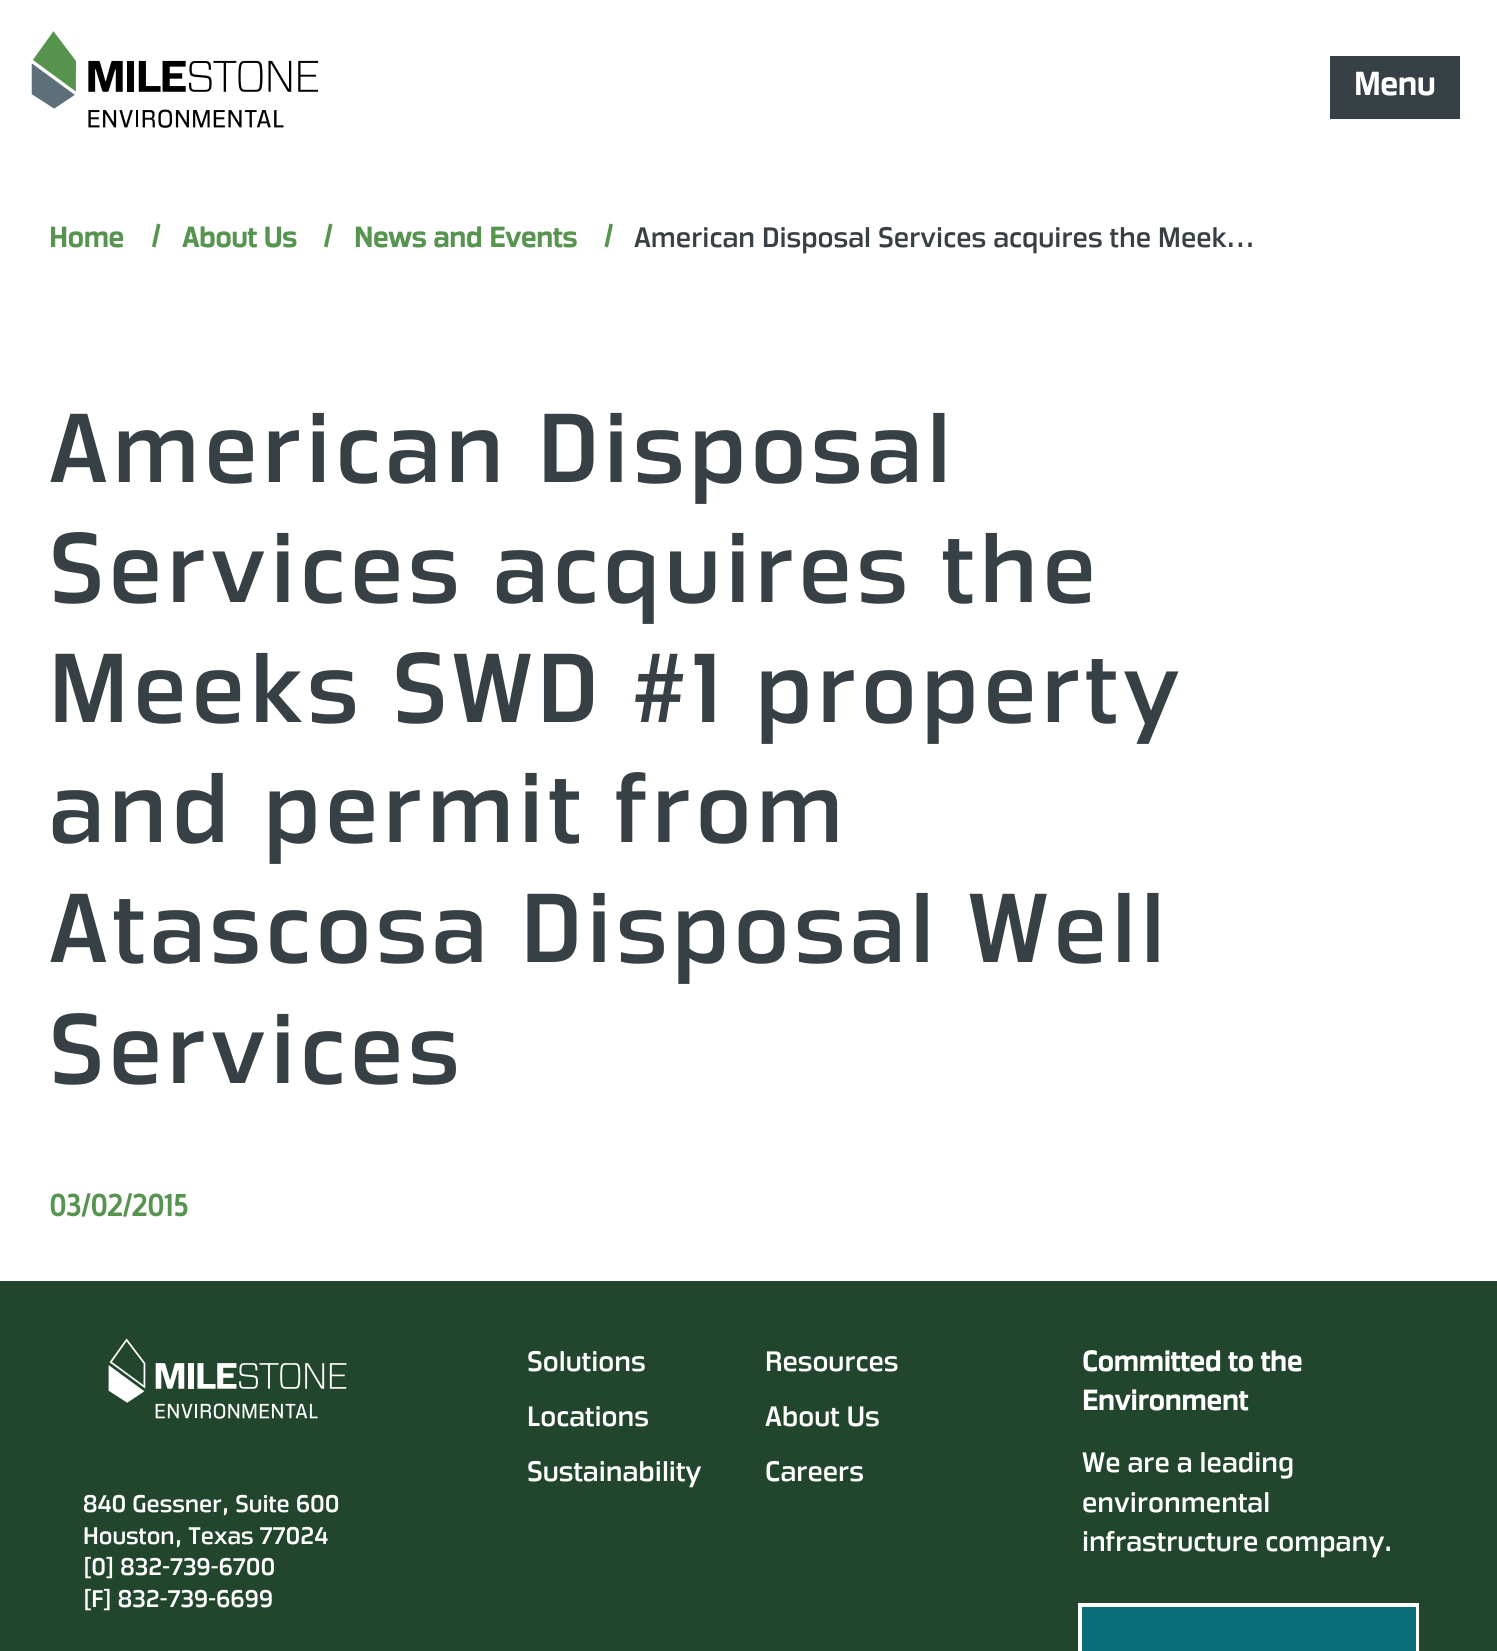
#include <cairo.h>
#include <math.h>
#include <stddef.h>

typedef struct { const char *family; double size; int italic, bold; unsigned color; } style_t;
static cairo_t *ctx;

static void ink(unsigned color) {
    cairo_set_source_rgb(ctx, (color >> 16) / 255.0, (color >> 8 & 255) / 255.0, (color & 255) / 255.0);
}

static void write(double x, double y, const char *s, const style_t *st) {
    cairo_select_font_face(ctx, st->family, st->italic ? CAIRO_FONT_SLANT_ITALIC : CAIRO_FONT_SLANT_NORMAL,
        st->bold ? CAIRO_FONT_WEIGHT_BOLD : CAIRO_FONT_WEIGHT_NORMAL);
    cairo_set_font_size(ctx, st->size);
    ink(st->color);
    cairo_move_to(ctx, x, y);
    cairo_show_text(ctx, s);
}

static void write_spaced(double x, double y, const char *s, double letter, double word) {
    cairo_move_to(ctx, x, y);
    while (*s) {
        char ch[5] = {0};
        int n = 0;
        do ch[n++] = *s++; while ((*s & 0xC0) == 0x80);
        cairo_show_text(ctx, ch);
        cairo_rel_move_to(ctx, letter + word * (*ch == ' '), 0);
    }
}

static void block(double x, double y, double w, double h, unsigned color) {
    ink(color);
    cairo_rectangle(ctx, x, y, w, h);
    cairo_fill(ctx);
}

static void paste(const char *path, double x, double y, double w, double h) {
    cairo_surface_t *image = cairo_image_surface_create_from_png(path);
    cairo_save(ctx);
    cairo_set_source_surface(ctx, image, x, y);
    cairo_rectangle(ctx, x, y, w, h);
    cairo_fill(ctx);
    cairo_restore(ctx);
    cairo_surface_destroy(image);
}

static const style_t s1 = {"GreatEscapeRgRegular", 31.5, 0, 1, 0xffffff};
static const style_t s2 = {"GreatEscapeRgRegular", 27.6, 0, 1, 0x56944f};
static const style_t s3 = {"GreatEscapeRgRegular", 27.6, 0, 0, 0x374044};
static const style_t s4 = {"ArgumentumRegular", 31.5, 0, 1, 0x56944f};
static const style_t s5 = {"GreatEscapeRgRegular", 23.6, 0, 0, 0xffffff};
static const style_t s6 = {"GreatEscapeRgRegular", 27.6, 0, 0, 0xffffff};
static const style_t s7 = {"GreatEscapeRgRegular", 27.6, 0, 1, 0xffffff};

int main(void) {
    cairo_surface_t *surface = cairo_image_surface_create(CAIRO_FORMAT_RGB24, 1497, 1651);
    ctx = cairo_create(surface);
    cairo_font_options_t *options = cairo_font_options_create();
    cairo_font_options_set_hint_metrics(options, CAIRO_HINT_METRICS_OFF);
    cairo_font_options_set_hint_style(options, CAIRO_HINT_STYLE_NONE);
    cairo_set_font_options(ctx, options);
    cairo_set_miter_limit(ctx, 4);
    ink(0xffffff);
    cairo_paint(ctx);
    paste("pic1.png", 31, 31, 288, 97);
    block(1330, 56, 130, 63, 0x374044);
    write(1354, 95, "Menu", &s1);
    write(49, 247, "Home", &s2);
    cairo_new_path(ctx);
    cairo_move_to(ctx, 157, 223.5);
    cairo_line_to(ctx, 160.5, 224.5);
    cairo_line_to(ctx, 155.5, 247.5);
    cairo_line_to(ctx, 152, 246.5);
    cairo_close_path(ctx);
    cairo_fill(ctx);
    write(182, 247, "About Us", &s2);
    cairo_new_path(ctx);
    cairo_move_to(ctx, 329, 223.5);
    cairo_line_to(ctx, 332.5, 224.5);
    cairo_line_to(ctx, 327.5, 247.5);
    cairo_line_to(ctx, 324, 246.5);
    cairo_close_path(ctx);
    cairo_fill(ctx);
    write(354, 247, "News and Events", &s2);
    cairo_new_path(ctx);
    cairo_move_to(ctx, 609.5, 223.5);
    cairo_line_to(ctx, 613, 224.5);
    cairo_line_to(ctx, 608, 247.5);
    cairo_line_to(ctx, 604.5, 246.5);
    cairo_close_path(ctx);
    cairo_fill(ctx);
    write(634, 247, "American Disposal Services acquires the Meek…", &s3);
    cairo_set_font_size(ctx, 96.1);
    write_spaced(49, 482, "American Disposal", 4.8, 0);
    write_spaced(49, 602, "Services acquires the", 4.8, 0);
    write_spaced(49, 722, "Meeks SWD #1 property", 4.8, 0);
    write_spaced(49, 842, "and permit from", 4.8, 0);
    write_spaced(49, 962, "Atascosa Disposal Well", 4.8, 0);
    write_spaced(49, 1083, "Services", 4.8, 0);
    write(49, 1216, "03/02/2015", &s4);
    block(0, 1281, 1497, 370, 0x22462d);
    paste("pic2.png", 108, 1338, 239, 81);
    write(83, 1512, "840 Gessner, Suite 600", &s5);
    write(83, 1544, "Houston, Texas 77024", &s5);
    write(83, 1575, "[0] 832-739-6700", &s5);
    write(83, 1607, "[F] 832-739-6699", &s5);
    write(527, 1371, "Solutions", &s6);
    write(765, 1371, "Resources", &s6);
    write(527, 1426, "Locations", &s6);
    write(765, 1426, "About Us", &s6);
    write(527, 1481, "Sustainability", &s6);
    write(765, 1481, "Careers", &s6);
    write(1082, 1371, "Committed to the", &s7);
    write(1082, 1410, "Environment", &s7);
    write(1082, 1472, "We are a leading", &s6);
    write(1082, 1512, "environmental", &s6);
    write(1082, 1551, "infrastructure company.", &s6);
    cairo_rectangle(ctx, 1080, 1605, 337, 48);
    cairo_set_line_width(ctx, 4);
    cairo_stroke(ctx);
    block(1082, 1607, 334, 44, 0x0b6d77);
    cairo_surface_write_to_png(surface, "screenshot.png");
    cairo_font_options_destroy(options);
    cairo_destroy(ctx);
    cairo_surface_destroy(surface);
    return 0;
}
